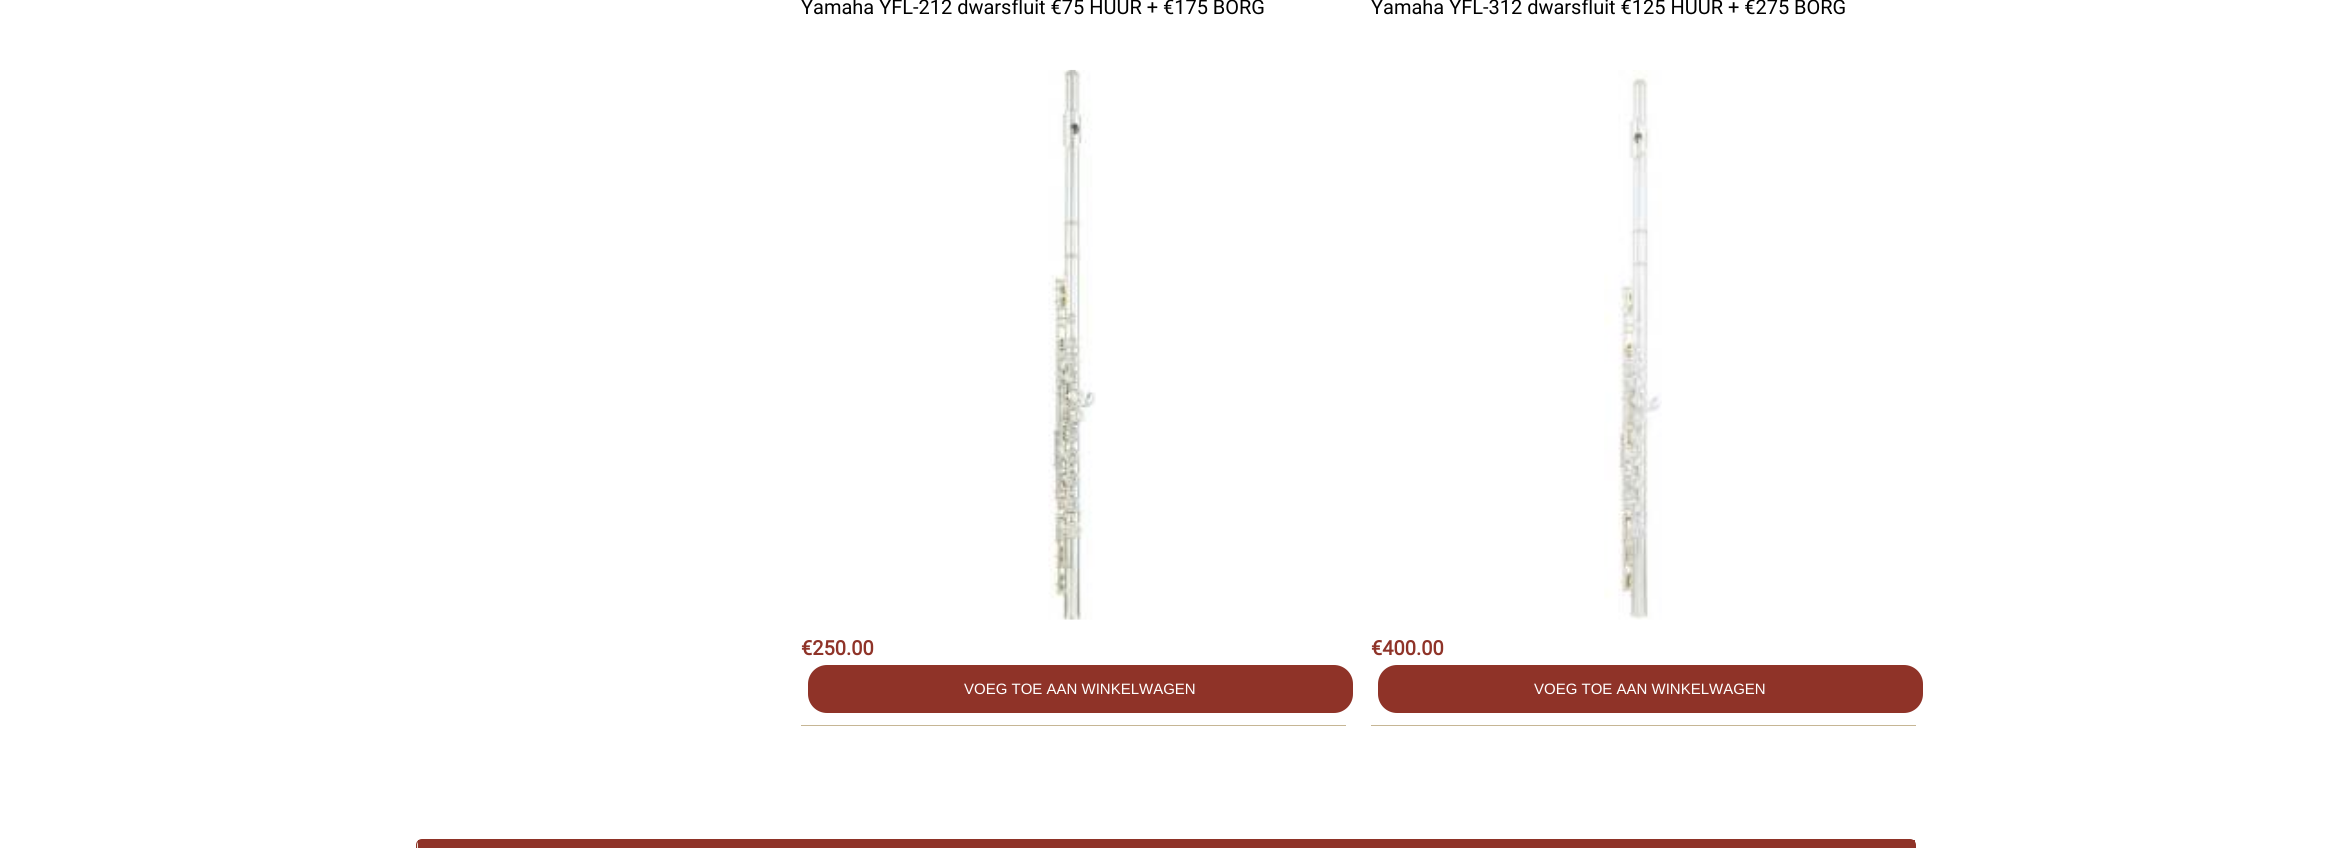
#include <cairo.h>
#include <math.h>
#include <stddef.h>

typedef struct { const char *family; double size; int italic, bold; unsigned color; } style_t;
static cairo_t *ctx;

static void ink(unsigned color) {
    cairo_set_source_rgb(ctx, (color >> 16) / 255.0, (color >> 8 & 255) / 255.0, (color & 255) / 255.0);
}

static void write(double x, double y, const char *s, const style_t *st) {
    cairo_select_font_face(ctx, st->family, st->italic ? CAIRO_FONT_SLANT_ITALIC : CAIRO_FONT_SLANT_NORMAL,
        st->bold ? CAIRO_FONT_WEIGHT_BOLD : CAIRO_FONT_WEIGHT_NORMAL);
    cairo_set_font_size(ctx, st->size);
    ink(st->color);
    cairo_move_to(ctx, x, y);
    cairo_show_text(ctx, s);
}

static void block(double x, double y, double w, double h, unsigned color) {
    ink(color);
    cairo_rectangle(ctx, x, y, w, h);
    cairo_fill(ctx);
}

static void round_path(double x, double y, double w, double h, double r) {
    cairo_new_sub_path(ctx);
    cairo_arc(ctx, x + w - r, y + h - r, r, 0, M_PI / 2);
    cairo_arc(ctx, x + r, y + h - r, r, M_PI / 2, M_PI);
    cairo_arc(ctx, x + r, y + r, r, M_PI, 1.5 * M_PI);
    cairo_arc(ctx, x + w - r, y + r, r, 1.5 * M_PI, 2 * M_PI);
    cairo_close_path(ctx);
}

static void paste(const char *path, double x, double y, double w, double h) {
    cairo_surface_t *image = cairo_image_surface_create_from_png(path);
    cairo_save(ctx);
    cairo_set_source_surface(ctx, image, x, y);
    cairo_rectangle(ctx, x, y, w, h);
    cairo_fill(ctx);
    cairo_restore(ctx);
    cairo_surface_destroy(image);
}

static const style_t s1 = {"Roboto", 20, 0, 0, 0x000000};
static const style_t s2 = {"Roboto", 20, 0, 1, 0x8f3328};
static const style_t s3 = {"Liberation Sans", 15, 0, 0, 0xffffff};

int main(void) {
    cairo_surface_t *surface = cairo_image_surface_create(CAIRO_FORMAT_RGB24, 2332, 848);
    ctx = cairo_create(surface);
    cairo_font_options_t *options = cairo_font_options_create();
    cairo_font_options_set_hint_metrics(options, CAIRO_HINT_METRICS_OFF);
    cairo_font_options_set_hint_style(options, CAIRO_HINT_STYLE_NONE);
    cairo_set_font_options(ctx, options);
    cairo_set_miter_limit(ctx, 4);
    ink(0xffffff);
    cairo_paint(ctx);
    block(801, 725, 545, 1, 0xc6b695);
    write(801, 14, "Yamaha YFL-212 dwarsfluit €75 HUUR + €175 BORG", &s1);
    paste("pic1.png", 1048, 69, 48, 551);
    write(801, 655, "€250.00", &s2);
    round_path(809.5, 666.5, 542, 45, 17.5);
    cairo_fill_preserve(ctx);
    cairo_set_line_width(ctx, 3);
    cairo_stroke(ctx);
    write(964, 694, "VOEG TOE AAN WINKELWAGEN", &s3);
    block(1371, 725, 545, 1, 0xc6b695);
    write(1371, 14, "Yamaha YFL-312 dwarsfluit €125 HUUR + €275 BORG", &s1);
    paste("pic2.png", 1604, 70, 58, 550);
    write(1371, 655, "€400.00", &s2);
    round_path(1379.5, 666.5, 542, 45, 17.5);
    cairo_fill_preserve(ctx);
    cairo_stroke(ctx);
    write(1534, 694, "VOEG TOE AAN WINKELWAGEN", &s3);
    ink(0xeae4d7);
    round_path(416.5, 839.5, 1499, 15, 5.5);
    cairo_fill_preserve(ctx);
    ink(0x8f3328);
    cairo_set_line_width(ctx, 1);
    cairo_stroke(ctx);
    block(418, 840, 1497, 8, 0x8f3328);
    cairo_surface_write_to_png(surface, "screenshot.png");
    cairo_font_options_destroy(options);
    cairo_destroy(ctx);
    cairo_surface_destroy(surface);
    return 0;
}
